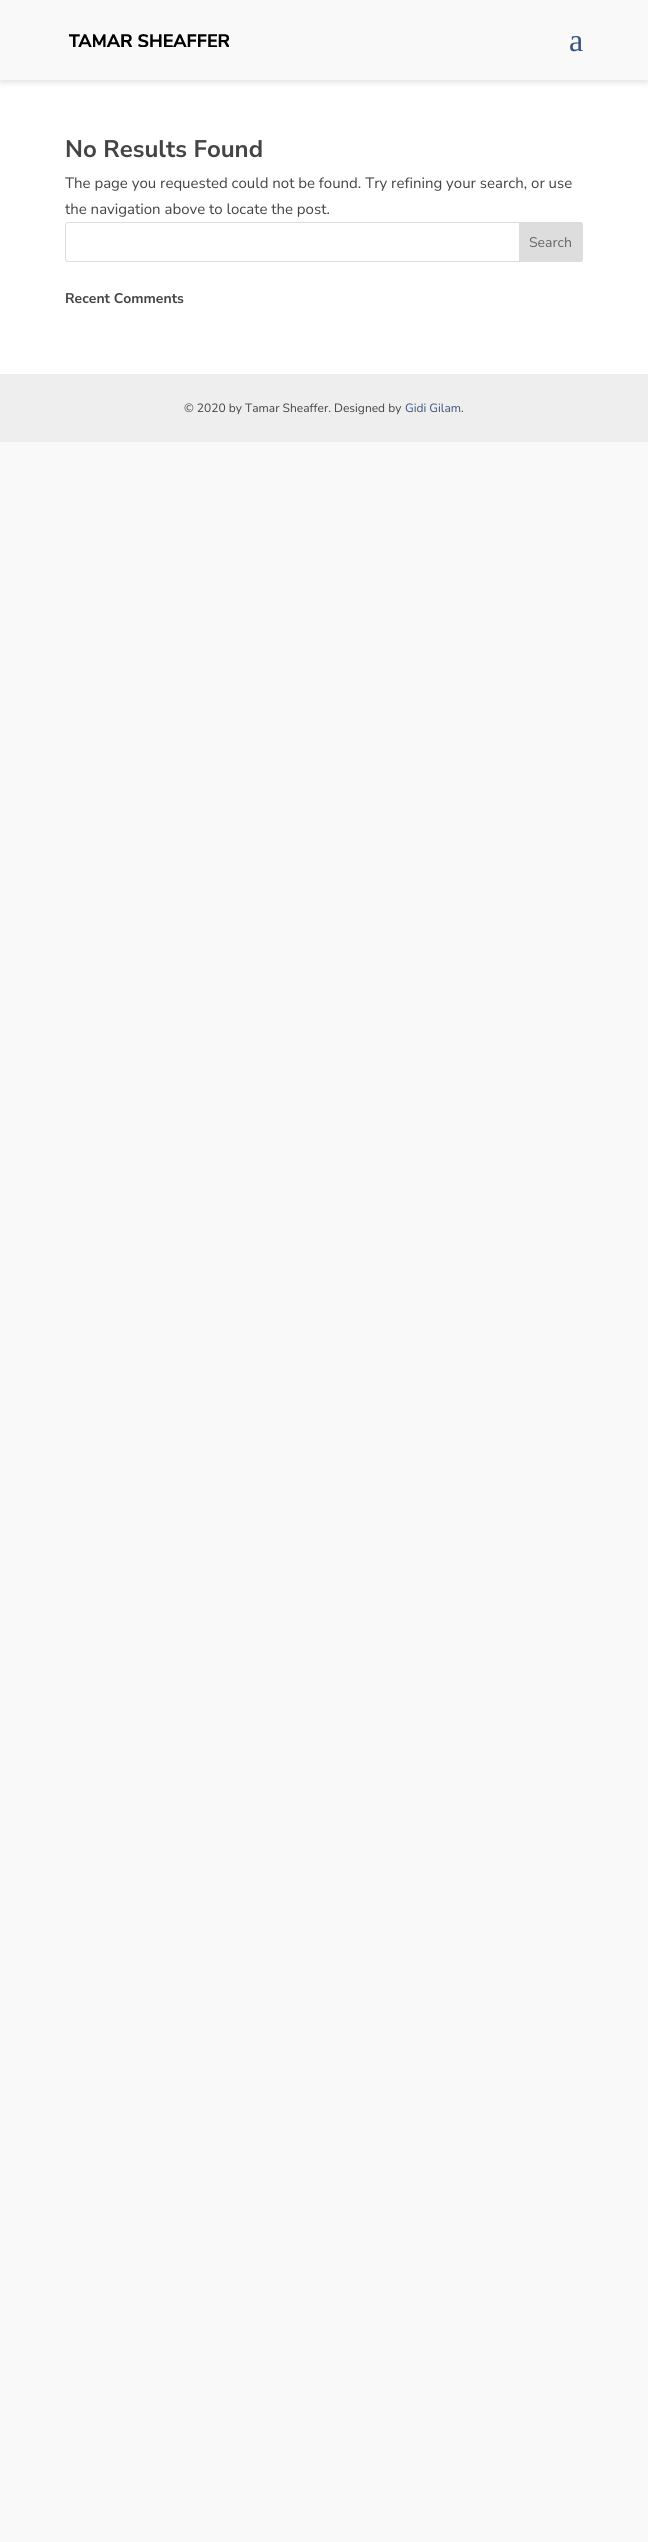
#include <cairo.h>
#include <math.h>
#include <stddef.h>

typedef struct { const char *family; double size; int italic, bold; unsigned color; } style_t;
static cairo_t *ctx;

static void ink(unsigned color) {
    cairo_set_source_rgb(ctx, (color >> 16) / 255.0, (color >> 8 & 255) / 255.0, (color & 255) / 255.0);
}

static void write(double x, double y, const char *s, const style_t *st) {
    cairo_select_font_face(ctx, st->family, st->italic ? CAIRO_FONT_SLANT_ITALIC : CAIRO_FONT_SLANT_NORMAL,
        st->bold ? CAIRO_FONT_WEIGHT_BOLD : CAIRO_FONT_WEIGHT_NORMAL);
    cairo_set_font_size(ctx, st->size);
    ink(st->color);
    cairo_move_to(ctx, x, y);
    cairo_show_text(ctx, s);
}

static void block(double x, double y, double w, double h, unsigned color) {
    ink(color);
    cairo_rectangle(ctx, x, y, w, h);
    cairo_fill(ctx);
}

static void round_path(double x, double y, double w, double h, double r) {
    cairo_new_sub_path(ctx);
    cairo_arc(ctx, x + w - r, y + h - r, r, 0, M_PI / 2);
    cairo_arc(ctx, x + r, y + h - r, r, M_PI / 2, M_PI);
    cairo_arc(ctx, x + r, y + r, r, M_PI, 1.5 * M_PI);
    cairo_arc(ctx, x + w - r, y + r, r, 1.5 * M_PI, 2 * M_PI);
    cairo_close_path(ctx);
}

static void blur_box(double x, double y, double w, double h, double r, double blur, double alpha) {
    cairo_push_group_with_content(ctx, CAIRO_CONTENT_ALPHA);
    cairo_set_operator(ctx, CAIRO_OPERATOR_SOURCE);
    for (int i = 15; i >= -15 && fmin(w, h) + blur * i / 3 > 0; i -= 2) {
        double e = blur * i / 6;
        cairo_set_source_rgba(ctx, 0, 0, 0, alpha * erfc((i - 1) / 8.5) / 2);
        round_path(x - e, y - e, w + 2 * e, h + 2 * e, fmax(0, fmin(r + e + blur * .6, fmin(w, h) / 2 + e)));
        cairo_fill(ctx);
    }
    cairo_pattern_t *soft = cairo_pop_group(ctx);
    cairo_mask(ctx, soft);
    cairo_pattern_destroy(soft);
}

static void paste(const char *path, double x, double y, double w, double h) {
    cairo_surface_t *image = cairo_image_surface_create_from_png(path);
    cairo_save(ctx);
    cairo_set_source_surface(ctx, image, x, y);
    cairo_rectangle(ctx, x, y, w, h);
    cairo_fill(ctx);
    cairo_restore(ctx);
    cairo_surface_destroy(image);
}

static const style_t s1 = {"Liberation Serif", 32, 0, 0, 0x3b537c};
static const style_t s2 = {"Nunito Sans ExtraLight", 24, 0, 0, 0x444444};
static const style_t s3 = {"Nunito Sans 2 ExtraLight", 15, 0, 0, 0x444444};
static const style_t s4 = {"Nunito Sans 2 ExtraLight", 14, 0, 0, 0x666666};
static const style_t s5 = {"Nunito Sans ExtraLight", 14, 0, 0, 0x444444};
static const style_t s6 = {"Nunito Sans 2 ExtraLight", 12, 0, 0, 0x444444};
static const style_t s7 = {"Nunito Sans 2 ExtraLight", 12, 0, 0, 0x3b537c};

int main(void) {
    cairo_surface_t *surface = cairo_image_surface_create(CAIRO_FORMAT_RGB24, 648, 2542);
    ctx = cairo_create(surface);
    cairo_font_options_t *options = cairo_font_options_create();
    cairo_font_options_set_hint_metrics(options, CAIRO_HINT_METRICS_OFF);
    cairo_font_options_set_hint_style(options, CAIRO_HINT_STYLE_NONE);
    cairo_set_font_options(ctx, options);
    cairo_set_miter_limit(ctx, 4);
    ink(0xf9f9f9);
    cairo_paint(ctx);
    block(0, 80, 648, 294, 0xffffff);
    ink(0x000000);
    blur_box(0, 3, 648, 80, 0, 3, 0.1);
    block(0, 0, 648, 80, 0xf9f9f9);
    paste("pic1.png", 69, 34, 160, 13);
    write(569, 51, "a", &s1);
    write(65, 157, "No Results Found", &s2);
    write(65, 188, "The page you requested could not be found. Try refining your search, or use", &s3);
    write(65, 214, "the navigation above to locate the post.", &s3);
    round_path(65.5, 222.5, 517, 39, 2.5);
    ink(0xdddddd);
    cairo_set_line_width(ctx, 1);
    cairo_stroke(ctx);
    cairo_new_path(ctx);
    cairo_move_to(ctx, 519.5, 222.5);
    cairo_line_to(ctx, 580, 222.5);
    cairo_curve_to(ctx, 581.5, 222.5, 582.5, 223.5, 582.5, 225);
    cairo_line_to(ctx, 582.5, 259);
    cairo_curve_to(ctx, 582.5, 260.5, 581.5, 261.5, 580, 261.5);
    cairo_line_to(ctx, 519.5, 261.5);
    cairo_close_path(ctx);
    cairo_fill_preserve(ctx);
    cairo_stroke(ctx);
    write(529, 247, "Search", &s4);
    write(65, 303, "Recent Comments", &s5);
    block(0, 374, 648, 68, 0xeeeeee);
    write(184, 412, "© 2020 by Tamar Sheaffer. Designed by", &s6);
    write(405, 412, "Gidi Gilam", &s7);
    write(461, 412, ".", &s6);
    cairo_surface_write_to_png(surface, "screenshot.png");
    cairo_font_options_destroy(options);
    cairo_destroy(ctx);
    cairo_surface_destroy(surface);
    return 0;
}
